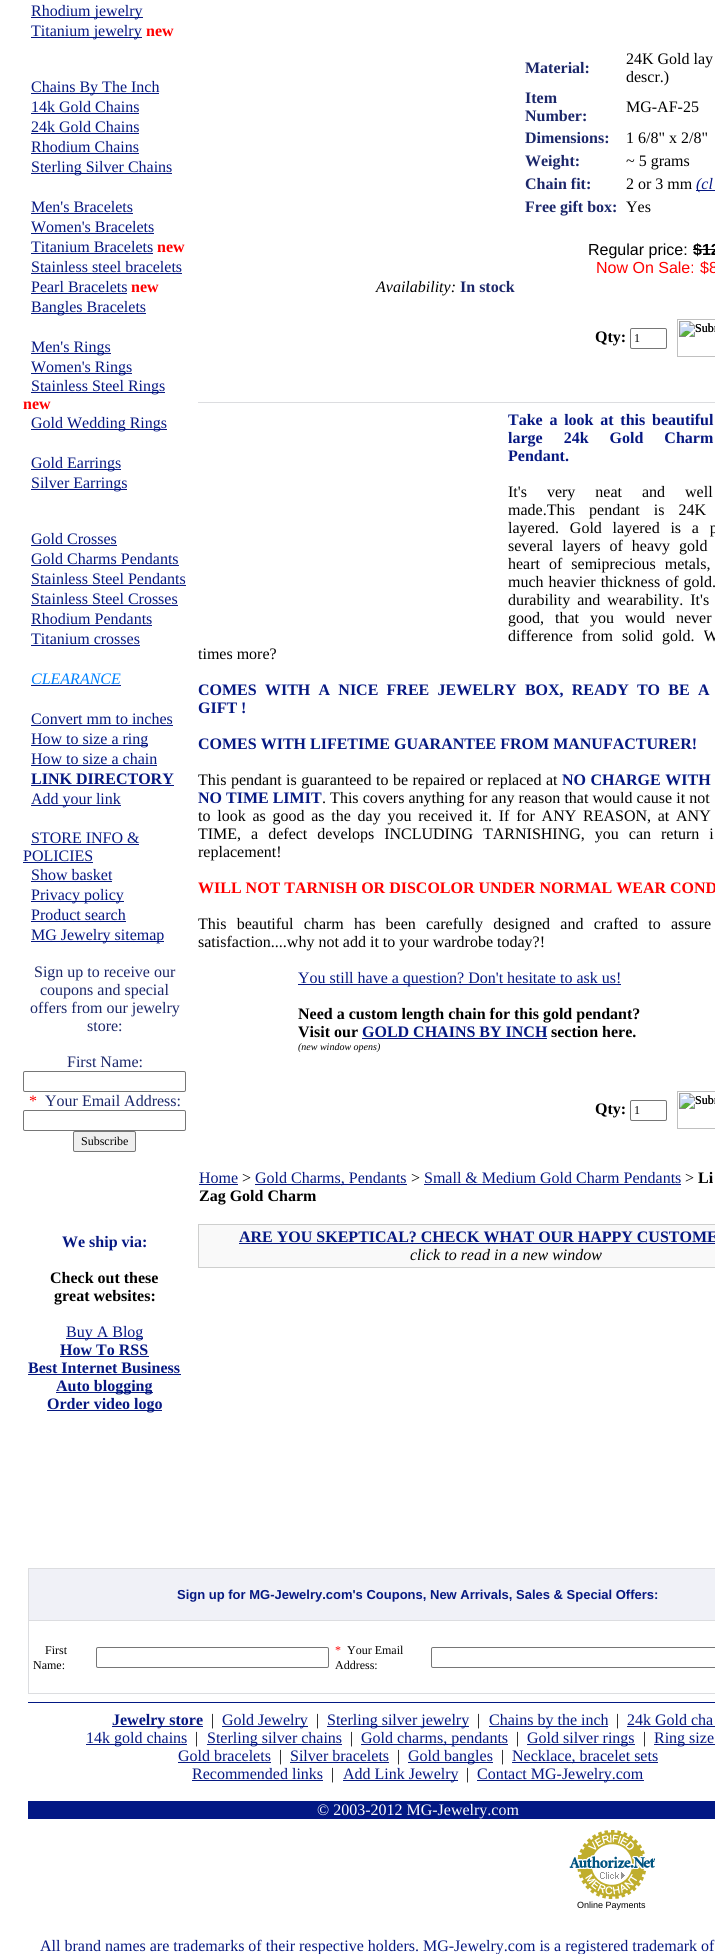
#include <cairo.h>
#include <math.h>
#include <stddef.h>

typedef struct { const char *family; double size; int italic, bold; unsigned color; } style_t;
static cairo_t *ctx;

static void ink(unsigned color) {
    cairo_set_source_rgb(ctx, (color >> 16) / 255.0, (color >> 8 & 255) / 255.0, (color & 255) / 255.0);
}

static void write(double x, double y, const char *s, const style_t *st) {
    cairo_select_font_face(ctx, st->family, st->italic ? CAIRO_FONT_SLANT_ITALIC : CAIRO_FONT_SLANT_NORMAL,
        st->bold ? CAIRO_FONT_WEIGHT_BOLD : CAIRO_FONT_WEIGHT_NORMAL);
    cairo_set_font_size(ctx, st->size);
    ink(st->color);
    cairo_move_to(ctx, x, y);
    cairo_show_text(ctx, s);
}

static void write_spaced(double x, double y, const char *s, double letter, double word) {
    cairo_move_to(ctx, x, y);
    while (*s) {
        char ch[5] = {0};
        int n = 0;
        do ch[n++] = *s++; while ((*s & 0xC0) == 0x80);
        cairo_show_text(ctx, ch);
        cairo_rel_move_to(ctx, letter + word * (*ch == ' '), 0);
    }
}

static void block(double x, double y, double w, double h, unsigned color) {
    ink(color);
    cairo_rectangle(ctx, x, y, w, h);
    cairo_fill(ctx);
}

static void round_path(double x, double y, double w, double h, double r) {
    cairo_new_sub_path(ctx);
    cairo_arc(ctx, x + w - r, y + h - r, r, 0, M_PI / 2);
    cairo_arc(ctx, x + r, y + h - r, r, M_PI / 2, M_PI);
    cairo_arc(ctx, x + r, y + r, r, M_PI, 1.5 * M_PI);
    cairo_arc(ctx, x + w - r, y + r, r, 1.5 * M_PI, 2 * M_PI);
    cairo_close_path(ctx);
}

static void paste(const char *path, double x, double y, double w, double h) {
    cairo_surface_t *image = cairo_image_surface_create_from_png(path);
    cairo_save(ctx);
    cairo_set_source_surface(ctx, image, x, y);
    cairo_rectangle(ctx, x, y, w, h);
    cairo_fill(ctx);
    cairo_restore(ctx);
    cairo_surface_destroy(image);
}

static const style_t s1 = {"Liberation Serif", 16, 0, 0, 0x061882};
static const style_t s2 = {"Liberation Serif", 16, 0, 1, 0xff0000};
static const style_t s3 = {"Liberation Serif", 16, 1, 0, 0x0080ff};
static const style_t s4 = {"Liberation Serif", 16, 0, 1, 0x061882};
static const style_t s5 = {"Liberation Serif", 16, 0, 0, 0x1b276a};
static const style_t s6 = {"Liberation Serif", 16, 0, 0, 0xff0000};
static const style_t s7 = {"Liberation Serif", 12, 0, 0, 0x000000};
static const style_t s8 = {"Liberation Serif", 16, 0, 1, 0x000000};
static const style_t s9 = {"Liberation Serif", 16, 0, 1, 0x1b276a};
static const style_t s10 = {"Liberation Serif", 16, 0, 0, 0x000000};
static const style_t s11 = {"Liberation Serif", 16, 1, 0, 0x061882};
static const style_t s12 = {"Liberation Sans", 16, 0, 0, 0x000000};
static const style_t s13 = {"Liberation Sans", 16, 0, 1, 0x000000};
static const style_t s14 = {"Liberation Sans", 16, 0, 0, 0xff0000};
static const style_t s15 = {"Liberation Serif", 16, 1, 0, 0x000000};
static const style_t s16 = {"Liberation Serif", 10, 1, 0, 0x000000};
static const style_t s17 = {"Liberation Sans", 13, 0, 1, 0x061882};
static const style_t s18 = {"Liberation Serif", 12, 0, 0, 0xff0000};
static const style_t s19 = {"Liberation Serif", 16, 0, 0, 0xffffff};
static const style_t s20 = {"Liberation Sans", 9, 0, 0, 0x000000};

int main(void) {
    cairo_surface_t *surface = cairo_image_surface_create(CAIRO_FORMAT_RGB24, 715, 1954);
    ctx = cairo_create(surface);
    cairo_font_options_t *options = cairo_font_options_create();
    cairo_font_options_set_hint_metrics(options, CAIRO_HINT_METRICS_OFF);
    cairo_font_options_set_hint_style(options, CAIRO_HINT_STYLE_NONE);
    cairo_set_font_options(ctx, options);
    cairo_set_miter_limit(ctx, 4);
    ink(0xffffff);
    cairo_paint(ctx);
    block(31, 17, 112, 1, 0x061882);
    write(31, 16, "Rhodium jewelry", &s1);
    block(31, 37, 111, 1, 0x061882);
    write(31, 36, "Titanium jewelry", &s1);
    write(146, 36, "new", &s2);
    block(31, 93, 128, 1, 0x061882);
    write(31, 92, "Chains By The Inch", &s1);
    write(31, 112, "14k Gold Chains", &s1);
    block(31, 113, 108, 1, 0x061882);
    write(31, 132, "24k Gold Chains", &s1);
    block(31, 133, 108, 1, 0x061882);
    write(31, 152, "Rhodium Chains", &s1);
    block(31, 153, 108, 1, 0x061882);
    block(31, 173, 141, 1, 0x061882);
    write(31, 172, "Sterling Silver Chains", &s1);
    write(31, 212, "Men's Bracelets", &s1);
    block(31, 213, 102, 1, 0x061882);
    write(31, 232, "Women's Bracelets", &s1);
    block(31, 233, 123, 1, 0x061882);
    write(31, 252, "Titanium Bracelets", &s1);
    block(31, 253, 122, 1, 0x061882);
    write(157, 252, "new", &s2);
    write(31, 272, "Stainless steel bracelets", &s1);
    block(31, 273, 151, 1, 0x061882);
    write(31, 292, "Pearl Bracelets", &s1);
    block(31, 293, 96, 1, 0x061882);
    write(131, 292, "new", &s2);
    block(31, 313, 115, 1, 0x061882);
    write(31, 312, "Bangles Bracelets", &s1);
    block(31, 353, 80, 1, 0x061882);
    write(31, 352, "Men's Rings", &s1);
    block(31, 373, 101, 1, 0x061882);
    write(31, 372, "Women's Rings", &s1);
    block(31, 392, 134, 1, 0x061882);
    write(31, 391, "Stainless Steel Rings", &s1);
    write(23, 409, "new", &s2);
    block(31, 429, 136, 1, 0x061882);
    write(31, 428, "Gold Wedding Rings", &s1);
    block(31, 469, 90, 1, 0x061882);
    write(31, 468, "Gold Earrings", &s1);
    block(31, 489, 96, 1, 0x061882);
    write(31, 488, "Silver Earrings", &s1);
    write(31, 544, "Gold Crosses", &s1);
    block(31, 545, 86, 1, 0x061882);
    write(31, 564, "Gold Charms Pendants", &s1);
    block(31, 565, 148, 1, 0x061882);
    write(31, 584, "Stainless Steel Pendants", &s1);
    block(31, 585, 155, 1, 0x061882);
    write(31, 604, "Stainless Steel Crosses", &s1);
    block(31, 605, 147, 1, 0x061882);
    write(31, 624, "Rhodium Pendants", &s1);
    block(31, 625, 121, 1, 0x061882);
    write(31, 644, "Titanium crosses", &s1);
    block(31, 645, 109, 1, 0x061882);
    write(31, 684, "CLEARANCE", &s3);
    block(31, 685, 90, 1, 0x061882);
    write(31, 724, "Convert mm to inches", &s1);
    block(31, 725, 142, 1, 0x061882);
    block(31, 745, 117, 1, 0x061882);
    write(31, 744, "How to size a ring", &s1);
    write(31, 764, "How to size a chain", &s1);
    block(31, 765, 126, 1, 0x061882);
    write(31, 784, "LINK DIRECTORY", &s4);
    block(31, 785, 143, 1, 0x061882);
    block(31, 805, 90, 1, 0x061882);
    write(31, 804, "Add your link", &s1);
    write(31, 843, "STORE INFO &", &s1);
    block(31, 844, 108, 1, 0x061882);
    write(23, 861, "POLICIES", &s1);
    block(23, 862, 70, 1, 0x061882);
    write(31, 880, "Show basket", &s1);
    block(31, 881, 81, 1, 0x061882);
    block(31, 901, 93, 1, 0x061882);
    write(31, 900, "Privacy policy", &s1);
    write(31, 920, "Product search", &s1);
    block(31, 921, 95, 1, 0x061882);
    block(31, 941, 133, 1, 0x061882);
    write(31, 940, "MG Jewelry sitemap", &s1);
    write(34, 977, "Sign up to receive our", &s5);
    write(40, 995, "coupons and special", &s5);
    write(30, 1013, "offers from our jewelry", &s5);
    write(87, 1031, "store:", &s5);
    write(67, 1067, "First Name:", &s5);
    round_path(23.5, 1071.5, 162, 20, 1.5);
    ink(0x767676);
    cairo_set_line_width(ctx, 1);
    cairo_stroke(ctx);
    write(29, 1106, "*", &s6);
    write(45, 1106, "Your Email Address:", &s5);
    round_path(23.5, 1110.5, 162, 20, 1.5);
    ink(0x767676);
    cairo_stroke(ctx);
    ink(0xefefef);
    round_path(73.5, 1131.5, 62, 20, 1.5);
    cairo_fill_preserve(ctx);
    ink(0x767676);
    cairo_stroke(ctx);
    write(81, 1145, "Subscribe", &s7);
    write(62, 1247, "We ship via:", &s4);
    write(50, 1283, "Check out these", &s8);
    write(54, 1301, "great websites:", &s8);
    block(66, 1338, 77, 1, 0x061882);
    write(66, 1337, "Buy A Blog", &s1);
    write(60, 1355, "How To RSS", &s4);
    block(60, 1356, 89, 1, 0x061882);
    write(28, 1373, "Best Internet Business", &s4);
    block(28, 1374, 153, 1, 0x061882);
    block(56, 1392, 97, 1, 0x061882);
    write(56, 1391, "Auto blogging", &s4);
    block(47, 1410, 115, 1, 0x061882);
    write(47, 1409, "Order video logo", &s4);
    write(525, 73, "Material:", &s9);
    write(626, 64, "24K Gold lay", &s10);
    write(626, 82, "descr.)", &s10);
    write(525, 103, "Item", &s9);
    write(525, 121, "Number:", &s9);
    write(626, 112, "MG-AF-25", &s10);
    write(525, 143, "Dimensions:", &s9);
    write(626, 143, "1 6/8\" x 2/8\"", &s10);
    write(525, 166, "Weight:", &s9);
    write(626, 166, "~ 5 grams", &s10);
    write(525, 189, "Chain fit:", &s9);
    write(626, 189, "2 or 3 mm", &s10);
    block(696, 190, 19, 1, 0x061882);
    write(696, 189, "(cl", &s11);
    write(525, 212, "Free gift box:", &s9);
    write(626, 212, "Yes", &s10);
    write(588, 255, "Regular price:", &s12);
    write(693, 255, "$12", &s13);
    block(693, 249, 22, 1, 0x000000);
    write(596, 273, "Now On Sale:", &s14);
    write(700, 273, "$8", &s14);
    write(376, 292, "Availability:", &s15);
    write(460, 292, "In stock", &s9);
    paste("pic1.png", 677, 319, 38, 38);
    write(695, 332, "Sub", &s7);
    write(595, 342, "Qty:", &s8);
    round_path(630.5, 328.5, 36, 20, 1.5);
    ink(0x767676);
    cairo_stroke(ctx);
    write(634, 342, "1", &s7);
    block(198, 402, 517, 1, 0xdcdde0);
    cairo_select_font_face(ctx, "Liberation Serif", CAIRO_FONT_SLANT_NORMAL, CAIRO_FONT_WEIGHT_BOLD);
    cairo_set_font_size(ctx, 16);
    ink(0x061882);
    write_spaced(508, 425, "Take a look at this beautiful", 0, 2.75);
    write_spaced(508, 443, "large 24k Gold Charm", 0, 17);
    write(508, 461, "Pendant.", &s4);
    cairo_select_font_face(ctx, "Liberation Serif", CAIRO_FONT_SLANT_NORMAL, CAIRO_FONT_WEIGHT_NORMAL);
    ink(0x000000);
    write_spaced(508, 497, "It's very neat and well", 0, 16);
    write_spaced(508, 515, "made.This pendant is 24K", 0, 10);
    write_spaced(508, 533, "layered. Gold layered is a p", 0, 6.75);
    write_spaced(508, 551, "several layers of heavy gold", 0, 5);
    write_spaced(508, 569, "heart of semiprecious metals,", 0, 5);
    write_spaced(508, 587, "much heavier thickness of gold.", 0, 1);
    write_spaced(508, 605, "durability and wearability. It's", 0, 3);
    write_spaced(508, 623, "good, that you would never", 0, 7);
    write_spaced(508, 641, "difference from solid gold. W", 0, 5);
    write(198, 659, "times more?", &s10);
    cairo_select_font_face(ctx, "Liberation Serif", CAIRO_FONT_SLANT_NORMAL, CAIRO_FONT_WEIGHT_BOLD);
    ink(0x061882);
    write_spaced(198, 695, "COMES WITH A NICE FREE JEWELRY BOX, READY TO BE A", 0, 4.25);
    write(198, 713, "GIFT !", &s4);
    write(198, 749, "COMES WITH LIFETIME GUARANTEE FROM MANUFACTURER!", &s4);
    cairo_select_font_face(ctx, "Liberation Serif", CAIRO_FONT_SLANT_NORMAL, CAIRO_FONT_WEIGHT_NORMAL);
    ink(0x000000);
    write_spaced(198, 785, "This pendant is guaranteed to be repaired or replaced at", 0, 0.5);
    cairo_select_font_face(ctx, "Liberation Serif", CAIRO_FONT_SLANT_NORMAL, CAIRO_FONT_WEIGHT_BOLD);
    ink(0x061882);
    write_spaced(562, 785, "NO CHARGE WITH", 0, 0.5);
    write(198, 803, "NO TIME LIMIT", &s4);
    cairo_select_font_face(ctx, "Liberation Serif", CAIRO_FONT_SLANT_NORMAL, CAIRO_FONT_WEIGHT_NORMAL);
    ink(0x000000);
    write_spaced(322, 803, ". This covers anything for any reason that would cause it not", 0, 0.1);
    write_spaced(198, 821, "to look as good as the day you received it. If for ANY REASON, at ANY", 0, 2.75);
    write_spaced(198, 839, "TIME, a defect develops INCLUDING TARNISHING, you can return i", 0, 6);
    write(198, 857, "replacement!", &s10);
    write(198, 893, "WILL NOT TARNISH OR DISCOLOR UNDER NORMAL WEAR COND", &s2);
    cairo_select_font_face(ctx, "Liberation Serif", CAIRO_FONT_SLANT_NORMAL, CAIRO_FONT_WEIGHT_NORMAL);
    ink(0x000000);
    write_spaced(198, 929, "This beautiful charm has been carefully designed and crafted to assure", 0, 6.25);
    write(198, 947, "satisfaction....why not add it to your wardrobe today?!", &s10);
    block(298, 984, 323, 1, 0x061882);
    write(298, 983, "You still have a question? Don't hesitate to ask us!", &s1);
    write(298, 1019, "Need a custom length chain for this gold pendant?", &s8);
    write(298, 1037, "Visit our", &s8);
    write(362, 1037, "GOLD CHAINS BY INCH", &s4);
    block(362, 1038, 185, 1, 0x061882);
    write(551, 1037, "section here.", &s8);
    write(298, 1050, "(new window opens)", &s16);
    paste("pic1.png", 677, 1091, 38, 38);
    write(695, 1104, "Sub", &s7);
    write(595, 1114, "Qty:", &s8);
    round_path(630.5, 1100.5, 36, 20, 1.5);
    ink(0x767676);
    cairo_stroke(ctx);
    write(634, 1114, "1", &s7);
    write(199, 1183, "Home", &s1);
    block(199, 1184, 39, 1, 0x061882);
    write(242, 1183, ">", &s10);
    block(255, 1184, 152, 1, 0x061882);
    write(255, 1183, "Gold Charms, Pendants", &s1);
    write(411, 1183, ">", &s10);
    write(424, 1183, "Small & Medium Gold Charm Pendants", &s1);
    block(424, 1184, 257, 1, 0x061882);
    write(685, 1183, ">", &s10);
    write(698, 1183, "Li", &s8);
    write(199, 1201, "Zag Gold Charm", &s8);
    block(198, 1224, 517, 44, 0xcecfce);
    block(199, 1225, 516, 42, 0xf9f9f9);
    write(239, 1242, "ARE YOU SKEPTICAL? CHECK WHAT OUR HAPPY CUSTOME", &s4);
    block(239, 1243, 476, 1, 0x061882);
    write(410, 1260, "click to read in a new window", &s15);
    block(28, 1568, 687, 126, 0xdcdde0);
    block(29, 1569, 686, 51, 0xf0f1f7);
    write(177, 1599, "Sign up for MG-Jewelry.com's Coupons, New Arrivals, Sales & Special Offers:", &s17);
    block(29, 1621, 686, 72, 0xffffff);
    write(45, 1654, "First", &s7);
    write(33, 1669, "Name:", &s7);
    round_path(96.5, 1647.5, 232, 20, 1.5);
    ink(0x767676);
    cairo_stroke(ctx);
    write(335, 1654, "*", &s18);
    write(347, 1654, "Your Email", &s7);
    write(335, 1669, "Address:", &s7);
    round_path(431.5, 1647.5, 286, 20, 1.5);
    ink(0x767676);
    cairo_stroke(ctx);
    block(28, 1702, 687, 1, 0x021884);
    block(112, 1726, 91, 1, 0x061882);
    write(112, 1725, "Jewelry store", &s4);
    write(211, 1725, "|", &s10);
    block(222, 1726, 86, 1, 0x061882);
    write(222, 1725, "Gold Jewelry", &s1);
    write(316, 1725, "|", &s10);
    block(327, 1726, 142, 1, 0x061882);
    write(327, 1725, "Sterling silver jewelry", &s1);
    write(477, 1725, "|", &s10);
    block(489, 1726, 119, 1, 0x061882);
    write(489, 1725, "Chains by the inch", &s1);
    write(616, 1725, "|", &s10);
    write(627, 1725, "24k Gold cha", &s1);
    block(627, 1726, 88, 1, 0x061882);
    block(86, 1744, 101, 1, 0x061882);
    write(86, 1743, "14k gold chains", &s1);
    write(195, 1743, "|", &s10);
    block(207, 1744, 135, 1, 0x061882);
    write(207, 1743, "Sterling silver chains", &s1);
    write(350, 1743, "|", &s10);
    block(361, 1744, 147, 1, 0x061882);
    write(361, 1743, "Gold charms, pendants", &s1);
    write(516, 1743, "|", &s10);
    block(527, 1744, 108, 1, 0x061882);
    write(527, 1743, "Gold silver rings", &s1);
    write(643, 1743, "|", &s10);
    block(654, 1744, 61, 1, 0x061882);
    write(654, 1743, "Ring size", &s1);
    write(178, 1761, "Gold bracelets", &s1);
    block(178, 1762, 93, 1, 0x061882);
    write(279, 1761, "|", &s10);
    write(290, 1761, "Silver bracelets", &s1);
    block(290, 1762, 99, 1, 0x061882);
    write(397, 1761, "|", &s10);
    block(408, 1762, 85, 1, 0x061882);
    write(408, 1761, "Gold bangles", &s1);
    write(501, 1761, "|", &s10);
    block(512, 1762, 146, 1, 0x061882);
    write(512, 1761, "Necklace, bracelet sets", &s1);
    write(192, 1779, "Recommended links", &s1);
    block(192, 1780, 131, 1, 0x061882);
    write(331, 1779, "|", &s10);
    block(343, 1780, 115, 1, 0x061882);
    write(343, 1779, "Add Link Jewelry", &s1);
    write(466, 1779, "|", &s10);
    block(477, 1780, 167, 1, 0x061882);
    write(477, 1779, "Contact MG-Jewelry.com", &s1);
    block(28, 1801, 687, 18, 0x021884);
    write(317, 1815, "© 2003-2012 MG-Jewelry.com", &s19);
    paste("pic2.png", 569, 1830, 86, 69);
    write(577, 1908, "Online Payments", &s20);
    write(40, 1951, "All brand names are trademarks of their respective holders. MG-Jewelry.com is a registered trademark of", &s1);
    cairo_surface_write_to_png(surface, "screenshot.png");
    cairo_font_options_destroy(options);
    cairo_destroy(ctx);
    cairo_surface_destroy(surface);
    return 0;
}
